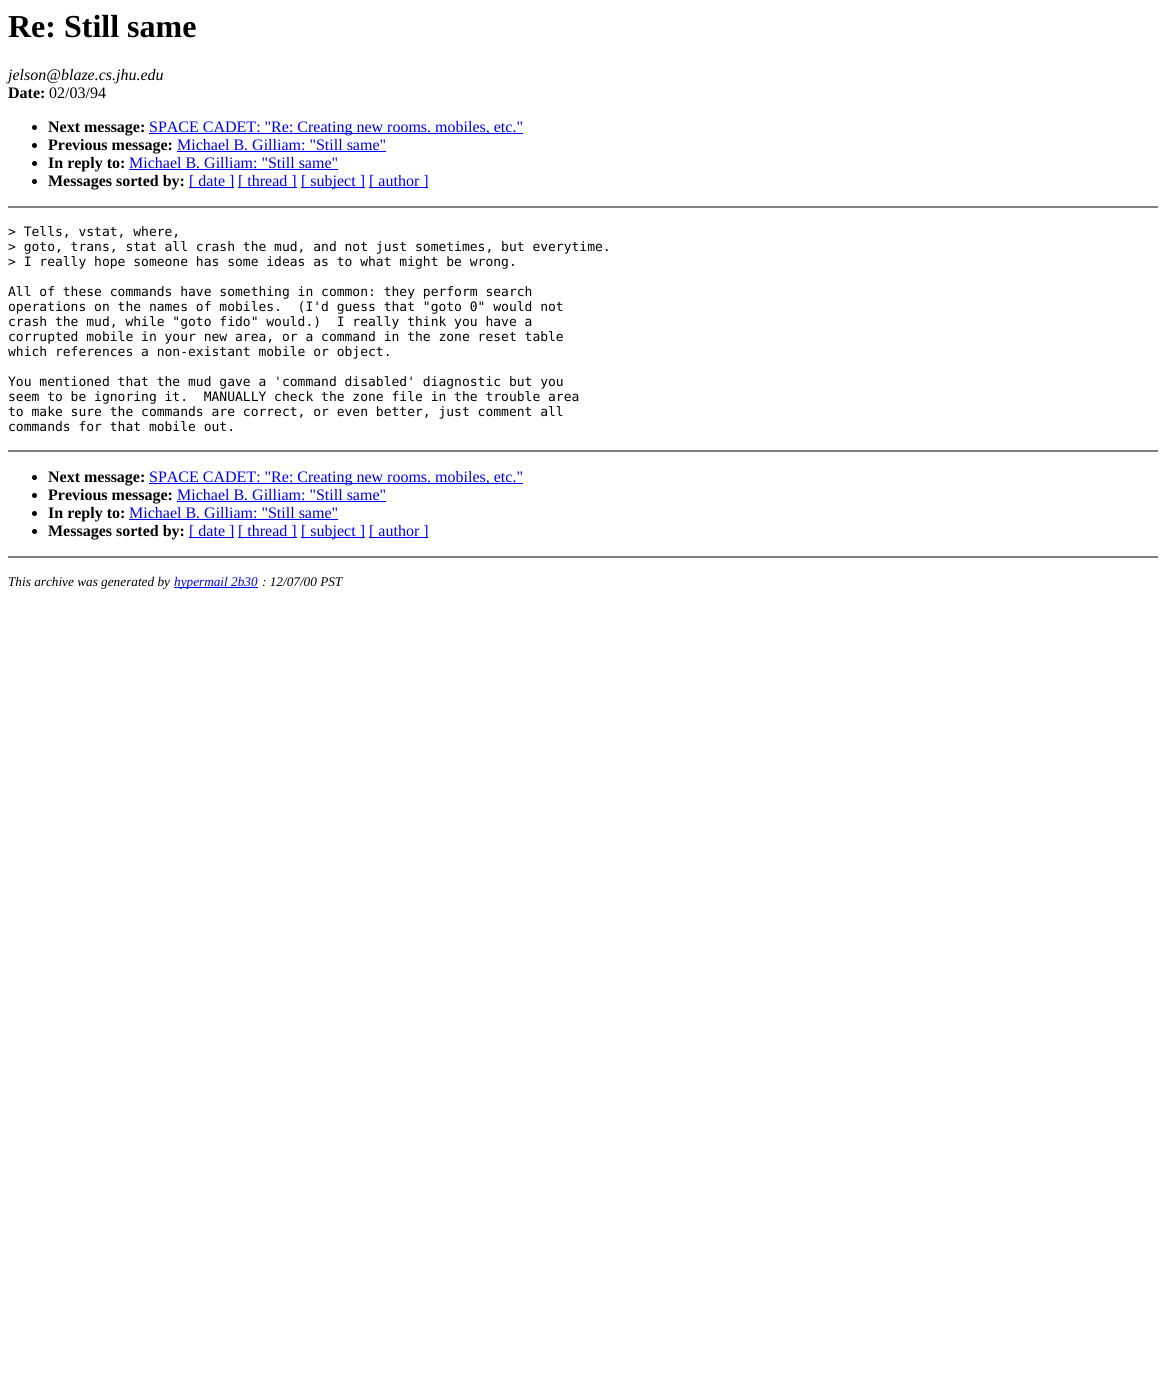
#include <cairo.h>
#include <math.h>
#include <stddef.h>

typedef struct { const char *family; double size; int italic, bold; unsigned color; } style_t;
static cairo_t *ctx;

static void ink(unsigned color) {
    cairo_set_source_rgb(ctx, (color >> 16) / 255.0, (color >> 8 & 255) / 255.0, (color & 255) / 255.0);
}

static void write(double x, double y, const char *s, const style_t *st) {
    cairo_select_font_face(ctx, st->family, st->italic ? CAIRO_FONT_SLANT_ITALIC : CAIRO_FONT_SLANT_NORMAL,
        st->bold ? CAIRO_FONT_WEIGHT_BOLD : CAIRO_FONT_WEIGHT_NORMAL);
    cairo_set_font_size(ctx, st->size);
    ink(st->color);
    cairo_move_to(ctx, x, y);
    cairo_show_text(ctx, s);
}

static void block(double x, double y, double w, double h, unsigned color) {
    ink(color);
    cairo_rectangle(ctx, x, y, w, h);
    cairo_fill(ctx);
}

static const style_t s1 = {"Liberation Serif", 32, 0, 1, 0x000000};
static const style_t s2 = {"Liberation Serif", 16, 1, 0, 0x000000};
static const style_t s3 = {"Liberation Serif", 16, 0, 1, 0x000000};
static const style_t s4 = {"Liberation Serif", 16, 0, 0, 0x000000};
static const style_t s5 = {"Liberation Serif", 16, 0, 0, 0x0000ee};
static const style_t s6 = {"DejaVu Sans Mono", 13, 0, 0, 0x000000};
static const style_t s7 = {"Liberation Serif", 13.25, 1, 0, 0x000000};
static const style_t s8 = {"Liberation Serif", 13.25, 1, 0, 0x0000ee};

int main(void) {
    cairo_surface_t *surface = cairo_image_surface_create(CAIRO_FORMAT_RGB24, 1166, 1374);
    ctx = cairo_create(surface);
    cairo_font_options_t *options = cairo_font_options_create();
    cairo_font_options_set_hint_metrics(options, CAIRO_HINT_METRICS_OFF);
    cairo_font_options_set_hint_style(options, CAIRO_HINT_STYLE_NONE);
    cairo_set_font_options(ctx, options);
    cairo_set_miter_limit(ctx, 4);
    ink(0xffffff);
    cairo_paint(ctx);
    write(8, 37, "Re: Still same", &s1);
    write(8, 80, "jelson@blaze.cs.jhu.edu", &s2);
    write(8, 98, "Date:", &s3);
    write(49, 98, "02/03/94", &s4);
    cairo_new_path(ctx);
    cairo_arc(ctx, 34.5, 127.5, 2.5, 0, 2 * M_PI);
    cairo_fill(ctx);
    write(48, 132, "Next message:", &s3);
    block(149, 133, 374, 1, 0x0000ee);
    write(149, 132, "SPACE CADET: \"Re: Creating new rooms. mobiles, etc.\"", &s5);
    ink(0x000000);
    cairo_new_path(ctx);
    cairo_arc(ctx, 34.5, 145.5, 2.5, 0, 2 * M_PI);
    cairo_fill(ctx);
    write(48, 150, "Previous message:", &s3);
    write(177, 150, "Michael B. Gilliam: \"Still same\"", &s5);
    block(177, 151, 209, 1, 0x0000ee);
    ink(0x000000);
    cairo_new_path(ctx);
    cairo_arc(ctx, 34.5, 163.5, 2.5, 0, 2 * M_PI);
    cairo_fill(ctx);
    write(48, 168, "In reply to:", &s3);
    write(129, 168, "Michael B. Gilliam: \"Still same\"", &s5);
    block(129, 169, 209, 1, 0x0000ee);
    ink(0x000000);
    cairo_new_path(ctx);
    cairo_arc(ctx, 34.5, 181.5, 2.5, 0, 2 * M_PI);
    cairo_fill(ctx);
    write(48, 186, "Messages sorted by:", &s3);
    block(189, 187, 45, 1, 0x0000ee);
    write(189, 186, "[ date ]", &s5);
    block(238, 187, 59, 1, 0x0000ee);
    write(238, 186, "[ thread ]", &s5);
    block(301, 187, 64, 1, 0x0000ee);
    write(301, 186, "[ subject ]", &s5);
    block(369, 187, 59, 1, 0x0000ee);
    write(369, 186, "[ author ]", &s5);
    block(8, 206, 1150, 2, 0x808080);
    write(8, 236, "> Tells, vstat, where,", &s6);
    write(8, 251, "> goto, trans, stat all crash the mud, and not just sometimes, but everytime.", &s6);
    write(8, 266, "> I really hope someone has some ideas as to what might be wrong.", &s6);
    write(8, 296, "All of these commands have something in common: they perform search", &s6);
    write(8, 311, "operations on the names of mobiles.  (I'd guess that \"goto 0\" would not", &s6);
    write(8, 326, "crash the mud, while \"goto fido\" would.)  I really think you have a", &s6);
    write(8, 341, "corrupted mobile in your new area, or a command in the zone reset table", &s6);
    write(8, 356, "which references a non-existant mobile or object.", &s6);
    write(8, 386, "You mentioned that the mud gave a 'command disabled' diagnostic but you", &s6);
    write(8, 401, "seem to be ignoring it.  MANUALLY check the zone file in the trouble area", &s6);
    write(8, 416, "to make sure the commands are correct, or even better, just comment all", &s6);
    write(8, 431, "commands for that mobile out.", &s6);
    block(8, 450, 1150, 2, 0x808080);
    ink(0x000000);
    cairo_new_path(ctx);
    cairo_arc(ctx, 34.5, 477.5, 2.5, 0, 2 * M_PI);
    cairo_fill(ctx);
    write(48, 482, "Next message:", &s3);
    block(149, 483, 374, 1, 0x0000ee);
    write(149, 482, "SPACE CADET: \"Re: Creating new rooms. mobiles, etc.\"", &s5);
    ink(0x000000);
    cairo_new_path(ctx);
    cairo_arc(ctx, 34.5, 495.5, 2.5, 0, 2 * M_PI);
    cairo_fill(ctx);
    write(48, 500, "Previous message:", &s3);
    write(177, 500, "Michael B. Gilliam: \"Still same\"", &s5);
    block(177, 501, 209, 1, 0x0000ee);
    ink(0x000000);
    cairo_new_path(ctx);
    cairo_arc(ctx, 34.5, 513.5, 2.5, 0, 2 * M_PI);
    cairo_fill(ctx);
    write(48, 518, "In reply to:", &s3);
    write(129, 518, "Michael B. Gilliam: \"Still same\"", &s5);
    block(129, 519, 209, 1, 0x0000ee);
    ink(0x000000);
    cairo_new_path(ctx);
    cairo_arc(ctx, 34.5, 531.5, 2.5, 0, 2 * M_PI);
    cairo_fill(ctx);
    write(48, 536, "Messages sorted by:", &s3);
    block(189, 537, 45, 1, 0x0000ee);
    write(189, 536, "[ date ]", &s5);
    block(238, 537, 59, 1, 0x0000ee);
    write(238, 536, "[ thread ]", &s5);
    block(301, 537, 64, 1, 0x0000ee);
    write(301, 536, "[ subject ]", &s5);
    block(369, 537, 59, 1, 0x0000ee);
    write(369, 536, "[ author ]", &s5);
    block(8, 556, 1150, 2, 0x808080);
    write(8, 586, "This archive was generated by", &s7);
    block(174, 587, 84, 1, 0x0000ee);
    write(174, 586, "hypermail 2b30", &s8);
    write(262, 586, ": 12/07/00 PST", &s7);
    cairo_surface_write_to_png(surface, "screenshot.png");
    cairo_font_options_destroy(options);
    cairo_destroy(ctx);
    cairo_surface_destroy(surface);
    return 0;
}
